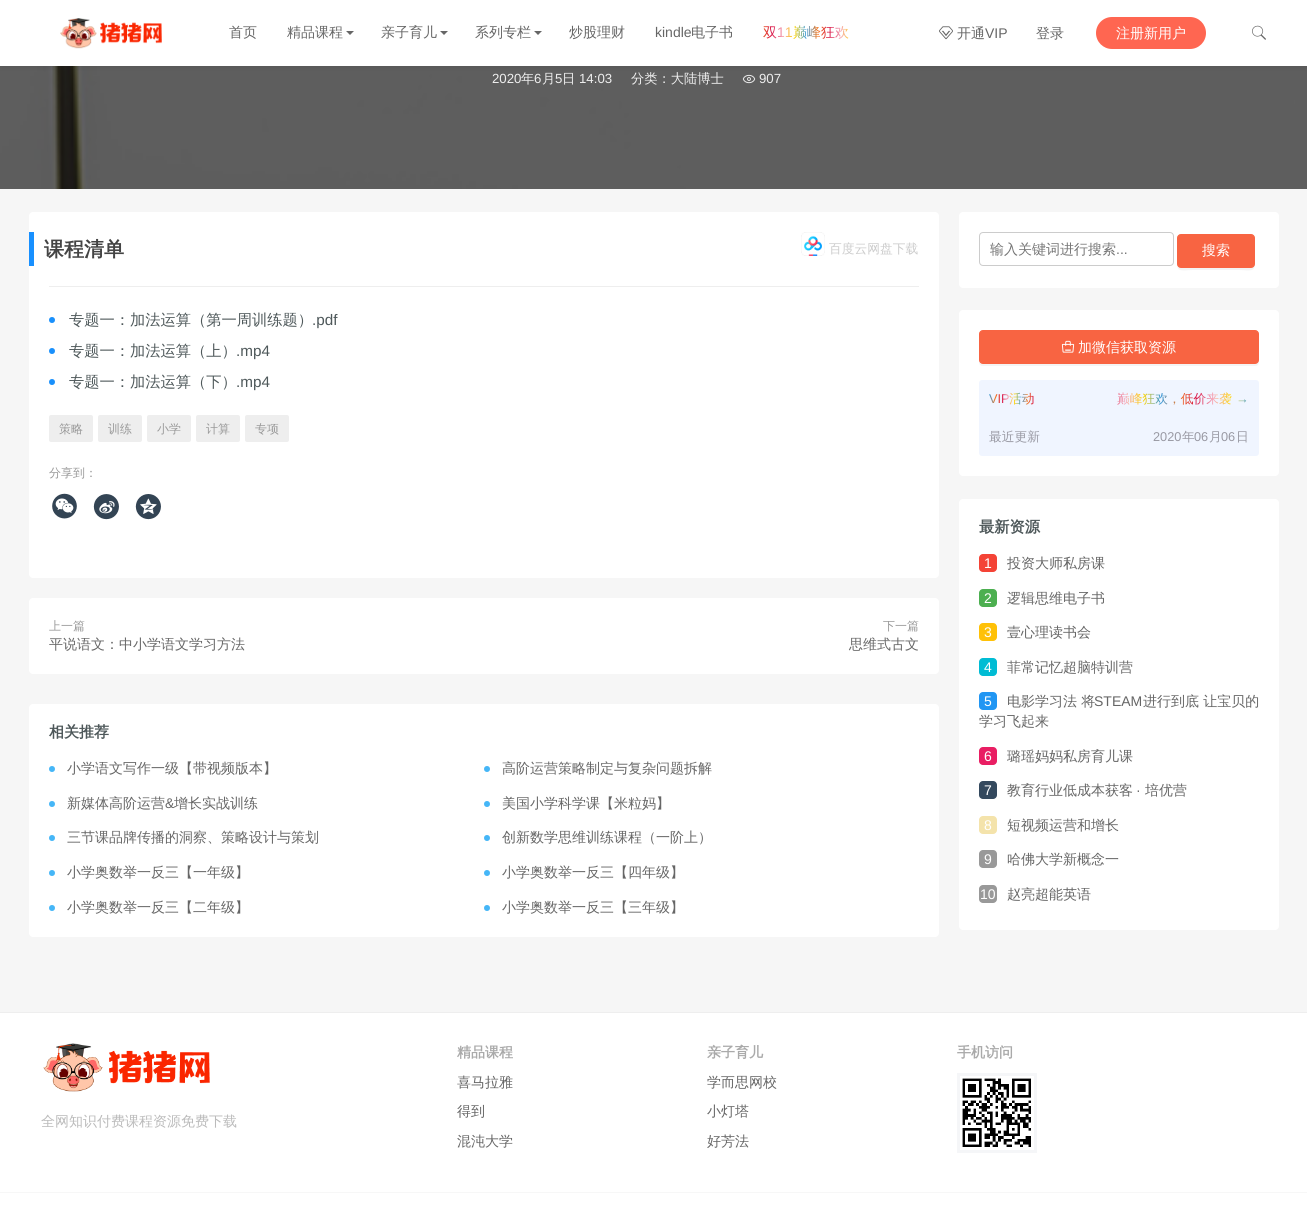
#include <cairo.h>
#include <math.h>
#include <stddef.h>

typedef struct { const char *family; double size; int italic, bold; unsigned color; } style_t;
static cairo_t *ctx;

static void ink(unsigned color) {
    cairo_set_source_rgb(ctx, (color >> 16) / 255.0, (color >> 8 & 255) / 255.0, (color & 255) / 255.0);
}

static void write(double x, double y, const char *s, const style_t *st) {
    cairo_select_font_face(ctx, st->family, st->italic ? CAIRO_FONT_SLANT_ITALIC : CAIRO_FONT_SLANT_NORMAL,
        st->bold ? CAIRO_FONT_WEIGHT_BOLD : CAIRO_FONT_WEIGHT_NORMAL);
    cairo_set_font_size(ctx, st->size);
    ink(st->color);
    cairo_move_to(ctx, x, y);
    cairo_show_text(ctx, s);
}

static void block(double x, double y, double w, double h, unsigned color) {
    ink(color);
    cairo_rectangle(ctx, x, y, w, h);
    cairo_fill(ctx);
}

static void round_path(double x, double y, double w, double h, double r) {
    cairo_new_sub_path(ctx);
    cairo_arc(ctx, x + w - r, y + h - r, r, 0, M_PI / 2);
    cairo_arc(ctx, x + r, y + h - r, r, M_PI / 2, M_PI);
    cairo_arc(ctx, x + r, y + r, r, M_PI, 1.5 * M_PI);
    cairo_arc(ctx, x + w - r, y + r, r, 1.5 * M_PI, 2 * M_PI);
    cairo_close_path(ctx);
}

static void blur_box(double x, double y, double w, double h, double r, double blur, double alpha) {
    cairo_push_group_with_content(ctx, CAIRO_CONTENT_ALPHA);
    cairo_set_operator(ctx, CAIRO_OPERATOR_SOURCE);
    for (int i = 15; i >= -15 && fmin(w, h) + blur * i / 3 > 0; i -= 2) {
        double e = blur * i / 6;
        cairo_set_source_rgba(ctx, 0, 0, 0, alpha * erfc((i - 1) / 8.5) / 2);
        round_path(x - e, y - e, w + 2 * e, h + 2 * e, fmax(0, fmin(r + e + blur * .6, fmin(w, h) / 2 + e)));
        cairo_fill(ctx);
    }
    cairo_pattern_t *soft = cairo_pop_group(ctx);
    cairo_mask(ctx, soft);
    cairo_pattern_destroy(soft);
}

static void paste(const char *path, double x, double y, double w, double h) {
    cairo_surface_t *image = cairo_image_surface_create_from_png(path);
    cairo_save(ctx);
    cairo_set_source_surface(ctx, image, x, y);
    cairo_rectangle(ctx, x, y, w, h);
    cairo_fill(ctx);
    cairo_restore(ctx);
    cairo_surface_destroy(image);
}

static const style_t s1 = {"WenQuanYi Zen Hei Medium", 14, 0, 0, 0x666666};
static const style_t s2 = {"Liberation Sans", 14, 0, 0, 0x666666};
static const style_t s3 = {"WenQuanYi Zen Hei Medium", 14, 0, 0, 0xffffff};
static const style_t s4 = {"Liberation Sans", 13.25, 0, 0, 0xeeeeee};
static const style_t s5 = {"WenQuanYi Zen Hei Medium", 13.25, 0, 0, 0xeeeeee};
static const style_t s6 = {"WenQuanYi Zen Hei", 20, 0, 1, 0x444444};
static const style_t s7 = {"WenQuanYi Zen Hei Medium", 12.75, 0, 0, 0xcccccc};
static const style_t s8 = {"WenQuanYi Zen Hei Medium", 15.25, 0, 0, 0x4e585a};
static const style_t s9 = {"Liberation Sans", 15.25, 0, 0, 0x4e585a};
static const style_t s10 = {"WenQuanYi Zen Hei Medium", 12, 0, 0, 0x999999};
static const style_t s11 = {"WenQuanYi Zen Hei", 15, 0, 1, 0x4e585a};
static const style_t s12 = {"WenQuanYi Zen Hei Medium", 14, 0, 0, 0x757575};
static const style_t s13 = {"Liberation Sans", 14, 0, 0, 0x757575};
static const style_t s14 = {"WenQuanYi Zen Hei Medium", 12.75, 0, 0, 0x9999a3};
static const style_t s15 = {"Liberation Sans", 12.75, 0, 0, 0x9999a3};
static const style_t s16 = {"WenQuanYi Zen Hei", 15.25, 0, 1, 0x4e585a};
static const style_t s17 = {"Liberation Sans", 14, 0, 0, 0xffffff};
static const style_t s18 = {"WenQuanYi Zen Hei", 14, 0, 1, 0xaaaaaa};
static const style_t s19 = {"WenQuanYi Zen Hei Medium", 14, 0, 0, 0xbbbbbb};

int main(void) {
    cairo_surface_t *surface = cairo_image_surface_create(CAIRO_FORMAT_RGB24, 1307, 1222);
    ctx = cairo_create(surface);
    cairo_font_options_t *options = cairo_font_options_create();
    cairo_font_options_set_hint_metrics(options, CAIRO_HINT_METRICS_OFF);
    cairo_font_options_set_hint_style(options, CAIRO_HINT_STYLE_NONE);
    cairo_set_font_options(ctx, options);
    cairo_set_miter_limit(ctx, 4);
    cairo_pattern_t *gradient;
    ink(0xf6f6f6);
    cairo_paint(ctx);
    paste("pic4.png", 0, 66, 1307, 123);
    paste("pic5.png", 742, 74, 14, 10);
    ink(0x000000);
    blur_box(0, 2, 1307, 66, 0, 2.5, 0.07);
    block(0, 0, 1307, 66, 0xffffff);
    paste("pic1.png", 60, 18, 102, 31);
    write(229, 37, "首页", &s1);
    write(287, 37, "精品课程", &s1);
    cairo_new_path(ctx);
    cairo_move_to(ctx, 346, 31);
    cairo_line_to(ctx, 354, 31);
    cairo_line_to(ctx, 350, 35);
    cairo_close_path(ctx);
    cairo_fill(ctx);
    write(381, 37, "亲子育儿", &s1);
    cairo_new_path(ctx);
    cairo_move_to(ctx, 440, 31);
    cairo_line_to(ctx, 448, 31);
    cairo_line_to(ctx, 444, 35);
    cairo_close_path(ctx);
    cairo_fill(ctx);
    write(475, 37, "系列专栏", &s1);
    cairo_new_path(ctx);
    cairo_move_to(ctx, 534, 31);
    cairo_line_to(ctx, 542, 31);
    cairo_line_to(ctx, 538, 35);
    cairo_close_path(ctx);
    cairo_fill(ctx);
    write(569, 37, "炒股理财", &s1);
    write(655, 37, "kindle", &s2);
    write(691, 37, "电子书", &s1);
    gradient = cairo_pattern_create_linear(748, 33, 864, 33);
    cairo_pattern_add_color_stop_rgba(gradient, 0, 0.204, 0.596, 0.859, 1);
    cairo_pattern_add_color_stop_rgba(gradient, 0.1, 0.957, 0.475, 0.125, 1);
    cairo_pattern_add_color_stop_rgba(gradient, 0.2, 0.843, 0.075, 0.271, 1);
    cairo_pattern_add_color_stop_rgba(gradient, 0.3, 0.969, 0.675, 0.737, 1);
    cairo_pattern_add_color_stop_rgba(gradient, 0.4, 1, 0.831, 0, 1);
    cairo_pattern_add_color_stop_rgba(gradient, 0.5, 0.204, 0.596, 0.859, 1);
    cairo_pattern_add_color_stop_rgba(gradient, 0.6, 0.957, 0.475, 0.125, 1);
    cairo_pattern_add_color_stop_rgba(gradient, 0.7, 0.843, 0.075, 0.271, 1);
    cairo_pattern_add_color_stop_rgba(gradient, 0.8, 0.969, 0.675, 0.737, 1);
    cairo_pattern_add_color_stop_rgba(gradient, 0.9, 1, 0.831, 0, 1);
    cairo_pattern_add_color_stop_rgba(gradient, 1, 0.204, 0.596, 0.859, 1);
    cairo_set_source(ctx, gradient);
    cairo_pattern_destroy(gradient);
    cairo_move_to(ctx, 763, 37);
    cairo_show_text(ctx, "双");
    cairo_select_font_face(ctx, "Liberation Sans", CAIRO_FONT_SLANT_NORMAL, CAIRO_FONT_WEIGHT_NORMAL);
    cairo_move_to(ctx, 777, 37);
    cairo_show_text(ctx, "11");
    cairo_select_font_face(ctx, "WenQuanYi Zen Hei Medium", CAIRO_FONT_SLANT_NORMAL, CAIRO_FONT_WEIGHT_NORMAL);
    cairo_move_to(ctx, 793, 37);
    cairo_show_text(ctx, "巅峰狂欢");
    paste("pic2.png", 939, 26, 14, 14);
    write(957, 38, "开通", &s1);
    write(985, 38, "VIP", &s2);
    write(1036, 38, "登录", &s1);
    ink(0xff6651);
    round_path(1096, 17, 110, 32, 16);
    cairo_fill(ctx);
    write(1116, 38, "注册新用户", &s3);
    paste("pic3.png", 1252, 25, 14, 15);
    write(492, 83, "2020", &s4);
    write(521, 83, "年", &s5);
    write(534, 83, "6", &s4);
    write(542, 83, "月", &s5);
    write(555, 83, "5", &s4);
    write(562, 83, "日", &s5);
    write(579, 83, "14:03", &s4);
    write(631, 83, "分类：大陆博士", &s5);
    write(759, 83, "907", &s4);
    ink(0xffffff);
    round_path(29, 212, 910, 366, 4);
    cairo_fill(ctx);
    block(29, 232, 5, 34, 0x1890ff);
    write(44, 256, "课程清单", &s6);
    paste("pic6.png", 801, 232, 24, 24);
    write(829, 253, "百度云网盘下载", &s7);
    block(49, 286, 870, 1, 0xeeeeee);
    ink(0x1990fc);
    cairo_new_path(ctx);
    cairo_arc(ctx, 52, 320, 3, 0, 2 * M_PI);
    cairo_fill(ctx);
    write(69, 325, "专题一：加法运算（第一周训练题）", &s8);
    write(312, 325, ".pdf", &s9);
    ink(0x1990fc);
    cairo_new_path(ctx);
    cairo_arc(ctx, 52, 351, 3, 0, 2 * M_PI);
    cairo_fill(ctx);
    write(69, 356, "专题一：加法运算（上）", &s8);
    write(236, 356, ".mp4", &s9);
    ink(0x1990fc);
    cairo_new_path(ctx);
    cairo_arc(ctx, 52, 382, 3, 0, 2 * M_PI);
    cairo_fill(ctx);
    write(69, 387, "专题一：加法运算（下）", &s8);
    write(236, 387, ".mp4", &s9);
    ink(0xeeeeee);
    round_path(49, 415, 44, 27, 2);
    cairo_fill(ctx);
    write(59, 433, "策略", &s10);
    ink(0xeeeeee);
    round_path(98, 415, 44, 27, 2);
    cairo_fill(ctx);
    write(108, 433, "训练", &s10);
    ink(0xeeeeee);
    round_path(147, 415, 44, 27, 2);
    cairo_fill(ctx);
    write(157, 433, "小学", &s10);
    ink(0xeeeeee);
    round_path(196, 415, 44, 27, 2);
    cairo_fill(ctx);
    write(206, 433, "计算", &s10);
    ink(0xeeeeee);
    round_path(245, 415, 44, 27, 2);
    cairo_fill(ctx);
    write(255, 433, "专项", &s10);
    write(49, 477, "分享到：", &s10);
    paste("pic7.png", 52, 493, 25, 26);
    paste("pic8.png", 93, 494, 26, 26);
    paste("pic9.png", 135, 494, 26, 26);
    ink(0xffffff);
    round_path(29, 598, 910, 76, 4);
    cairo_fill(ctx);
    write(49, 630, "上一篇", &s10);
    write(49, 649, "平说语文：中小学语文学习方法", &s1);
    write(883, 630, "下一篇", &s10);
    write(849, 649, "思维式古文", &s1);
    ink(0xffffff);
    round_path(29, 704, 910, 233, 4);
    cairo_fill(ctx);
    write(49, 737, "相关推荐", &s11);
    ink(0x45b6f7);
    cairo_new_path(ctx);
    cairo_arc(ctx, 52, 769, 3, 0, 2 * M_PI);
    cairo_fill(ctx);
    write(67, 773, "小学语文写作一级【带视频版本】", &s1);
    ink(0x45b6f7);
    cairo_new_path(ctx);
    cairo_arc(ctx, 487, 769, 3, 0, 2 * M_PI);
    cairo_fill(ctx);
    write(502, 773, "高阶运营策略制定与复杂问题拆解", &s1);
    ink(0x45b6f7);
    cairo_new_path(ctx);
    cairo_arc(ctx, 52, 804, 3, 0, 2 * M_PI);
    cairo_fill(ctx);
    write(67, 808, "新媒体高阶运营", &s1);
    write(165, 808, "&", &s2);
    write(174, 808, "增长实战训练", &s1);
    ink(0x45b6f7);
    cairo_new_path(ctx);
    cairo_arc(ctx, 487, 804, 3, 0, 2 * M_PI);
    cairo_fill(ctx);
    write(502, 808, "美国小学科学课【米粒妈】", &s1);
    ink(0x45b6f7);
    cairo_new_path(ctx);
    cairo_arc(ctx, 52, 838, 3, 0, 2 * M_PI);
    cairo_fill(ctx);
    write(67, 842, "三节课品牌传播的洞察、策略设计与策划", &s1);
    ink(0x45b6f7);
    cairo_new_path(ctx);
    cairo_arc(ctx, 487, 838, 3, 0, 2 * M_PI);
    cairo_fill(ctx);
    write(502, 842, "创新数学思维训练课程（一阶上）", &s1);
    ink(0x45b6f7);
    cairo_new_path(ctx);
    cairo_arc(ctx, 52, 873, 3, 0, 2 * M_PI);
    cairo_fill(ctx);
    write(67, 877, "小学奥数举一反三【一年级】", &s1);
    ink(0x45b6f7);
    cairo_new_path(ctx);
    cairo_arc(ctx, 487, 873, 3, 0, 2 * M_PI);
    cairo_fill(ctx);
    write(502, 877, "小学奥数举一反三【四年级】", &s1);
    ink(0x45b6f7);
    cairo_new_path(ctx);
    cairo_arc(ctx, 52, 908, 3, 0, 2 * M_PI);
    cairo_fill(ctx);
    write(67, 912, "小学奥数举一反三【二年级】", &s1);
    ink(0x45b6f7);
    cairo_new_path(ctx);
    cairo_arc(ctx, 487, 908, 3, 0, 2 * M_PI);
    cairo_fill(ctx);
    write(502, 912, "小学奥数举一反三【三年级】", &s1);
    ink(0xffffff);
    round_path(959, 212, 320, 76, 4);
    cairo_fill(ctx);
    round_path(979.5, 232.5, 194, 33, 3.5);
    ink(0xcccccc);
    cairo_set_line_width(ctx, 1);
    cairo_stroke(ctx);
    cairo_save(ctx);
    cairo_rectangle(ctx, 990, 241, 173, 18);
    cairo_clip(ctx);
    write(990, 254, "输入关键词进行搜索", &s12);
    cairo_restore(ctx);
    write(1116, 254, "...", &s13);
    ink(0xf4f4f4);
    cairo_new_path(ctx);
    cairo_move_to(ctx, 1177, 264);
    cairo_curve_to(ctx, 1177, 273, 1185, 270, 1193, 270);
    cairo_line_to(ctx, 1239, 270);
    cairo_curve_to(ctx, 1247, 270, 1255, 273, 1255, 264);
    cairo_curve_to(ctx, 1255, 266, 1253, 268, 1251, 268);
    cairo_line_to(ctx, 1181, 268);
    cairo_curve_to(ctx, 1179, 268, 1177, 266, 1177, 264);
    cairo_close_path(ctx);
    cairo_fill(ctx);
    ink(0xf86442);
    round_path(1177.5, 234.5, 77, 33, 3.5);
    cairo_fill_preserve(ctx);
    cairo_stroke(ctx);
    write(1202, 255, "搜索", &s3);
    round_path(959, 310, 320, 166, 4);
    cairo_fill(ctx);
    ink(0xf4f4f4);
    cairo_new_path(ctx);
    cairo_move_to(ctx, 979, 360);
    cairo_curve_to(ctx, 979, 363, 979, 366, 983, 366);
    cairo_line_to(ctx, 1255, 366);
    cairo_curve_to(ctx, 1259, 366, 1259, 363, 1259, 360);
    cairo_curve_to(ctx, 1259, 362, 1257, 364, 1255, 364);
    cairo_line_to(ctx, 983, 364);
    cairo_curve_to(ctx, 981, 364, 979, 362, 979, 360);
    cairo_close_path(ctx);
    cairo_fill(ctx);
    ink(0xf86442);
    round_path(979.5, 330.5, 279, 33, 3.5);
    cairo_fill_preserve(ctx);
    cairo_stroke(ctx);
    paste("pic10.png", 1061, 340, 14, 13);
    write(1078, 352, "加微信获取资源", &s3);
    ink(0xf0f5ff);
    round_path(979, 380, 280, 76, 3);
    cairo_fill(ctx);
    cairo_select_font_face(ctx, "Liberation Sans", CAIRO_FONT_SLANT_NORMAL, CAIRO_FONT_WEIGHT_NORMAL);
    cairo_set_font_size(ctx, 12.75);
    gradient = cairo_pattern_create_linear(989, 399, 1053, 399);
    cairo_pattern_add_color_stop_rgba(gradient, 0, 0.204, 0.596, 0.859, 1);
    cairo_pattern_add_color_stop_rgba(gradient, 0.1, 0.957, 0.475, 0.125, 1);
    cairo_pattern_add_color_stop_rgba(gradient, 0.2, 0.843, 0.075, 0.271, 1);
    cairo_pattern_add_color_stop_rgba(gradient, 0.3, 0.969, 0.675, 0.737, 1);
    cairo_pattern_add_color_stop_rgba(gradient, 0.4, 1, 0.831, 0, 1);
    cairo_pattern_add_color_stop_rgba(gradient, 0.5, 0.204, 0.596, 0.859, 1);
    cairo_pattern_add_color_stop_rgba(gradient, 0.6, 0.957, 0.475, 0.125, 1);
    cairo_pattern_add_color_stop_rgba(gradient, 0.7, 0.843, 0.075, 0.271, 1);
    cairo_pattern_add_color_stop_rgba(gradient, 0.8, 0.969, 0.675, 0.737, 1);
    cairo_pattern_add_color_stop_rgba(gradient, 0.9, 1, 0.831, 0, 1);
    cairo_pattern_add_color_stop_rgba(gradient, 1, 0.204, 0.596, 0.859, 1);
    cairo_set_source(ctx, gradient);
    cairo_pattern_destroy(gradient);
    cairo_move_to(ctx, 989, 403);
    cairo_show_text(ctx, "VIP");
    cairo_select_font_face(ctx, "WenQuanYi Zen Hei Medium", CAIRO_FONT_SLANT_NORMAL, CAIRO_FONT_WEIGHT_NORMAL);
    cairo_move_to(ctx, 1009, 403);
    cairo_show_text(ctx, "活动");
    gradient = cairo_pattern_create_linear(1073, 399, 1249, 399);
    cairo_pattern_add_color_stop_rgba(gradient, 0, 0.204, 0.596, 0.859, 1);
    cairo_pattern_add_color_stop_rgba(gradient, 0.1, 0.957, 0.475, 0.125, 1);
    cairo_pattern_add_color_stop_rgba(gradient, 0.2, 0.843, 0.075, 0.271, 1);
    cairo_pattern_add_color_stop_rgba(gradient, 0.3, 0.969, 0.675, 0.737, 1);
    cairo_pattern_add_color_stop_rgba(gradient, 0.4, 1, 0.831, 0, 1);
    cairo_pattern_add_color_stop_rgba(gradient, 0.5, 0.204, 0.596, 0.859, 1);
    cairo_pattern_add_color_stop_rgba(gradient, 0.6, 0.957, 0.475, 0.125, 1);
    cairo_pattern_add_color_stop_rgba(gradient, 0.7, 0.843, 0.075, 0.271, 1);
    cairo_pattern_add_color_stop_rgba(gradient, 0.8, 0.969, 0.675, 0.737, 1);
    cairo_pattern_add_color_stop_rgba(gradient, 0.9, 1, 0.831, 0, 1);
    cairo_pattern_add_color_stop_rgba(gradient, 1, 0.204, 0.596, 0.859, 1);
    cairo_set_source(ctx, gradient);
    cairo_pattern_destroy(gradient);
    cairo_move_to(ctx, 1117, 403);
    cairo_show_text(ctx, "巅峰狂欢，低价来袭");
    cairo_select_font_face(ctx, "Liberation Sans", CAIRO_FONT_SLANT_NORMAL, CAIRO_FONT_WEIGHT_NORMAL);
    cairo_move_to(ctx, 1236, 403);
    cairo_show_text(ctx, "→");
    write(989, 441, "最近更新", &s14);
    write(1153, 441, "2020", &s15);
    write(1182, 441, "年", &s14);
    write(1194, 441, "06", &s15);
    write(1209, 441, "月", &s14);
    write(1221, 441, "06", &s15);
    write(1236, 441, "日", &s14);
    ink(0xffffff);
    round_path(959, 499, 320, 431, 4);
    cairo_fill(ctx);
    write(979, 532, "最新资源", &s16);
    ink(0xf44336);
    round_path(979, 554, 18, 18, 4);
    cairo_fill(ctx);
    write(984, 568, "1", &s17);
    write(1007, 568, "投资大师私房课", &s1);
    ink(0x4caf50);
    round_path(979, 589, 18, 18, 4);
    cairo_fill(ctx);
    write(984, 603, "2", &s17);
    write(1007, 603, "逻辑思维电子书", &s1);
    ink(0xffc107);
    round_path(979, 623, 18, 18, 4);
    cairo_fill(ctx);
    write(984, 637, "3", &s17);
    write(1007, 637, "壹心理读书会", &s1);
    ink(0x00bcd4);
    round_path(979, 658, 18, 18, 4);
    cairo_fill(ctx);
    write(984, 672, "4", &s17);
    write(1007, 672, "菲常记忆超脑特训营", &s1);
    ink(0x2196f3);
    round_path(979, 692, 18, 18, 4);
    cairo_fill(ctx);
    write(984, 706, "5", &s17);
    write(1007, 706, "电影学习法 将", &s1);
    write(1094, 706, "STEAM", &s2);
    write(1143, 706, "进行到底 让宝贝的", &s1);
    write(979, 726, "学习飞起来", &s1);
    ink(0xe91e63);
    round_path(979, 747, 18, 18, 4);
    cairo_fill(ctx);
    write(984, 761, "6", &s17);
    write(1007, 761, "璐瑶妈妈私房育儿课", &s1);
    ink(0x34495e);
    round_path(979, 781, 18, 18, 4);
    cairo_fill(ctx);
    write(984, 795, "7", &s17);
    write(1007, 795, "教育行业低成本获客", &s1);
    write(1136, 795, "·", &s2);
    write(1145, 795, "培优营", &s1);
    ink(0xf4e3ab);
    round_path(979, 816, 18, 18, 4);
    cairo_fill(ctx);
    write(984, 830, "8", &s17);
    write(1007, 830, "短视频运营和增长", &s1);
    ink(0x999999);
    round_path(979, 850, 18, 18, 4);
    cairo_fill(ctx);
    write(984, 864, "9", &s17);
    write(1007, 864, "哈佛大学新概念一", &s1);
    ink(0x999999);
    round_path(979, 885, 18, 18, 4);
    cairo_fill(ctx);
    write(980, 899, "10", &s17);
    write(1007, 899, "赵亮超能英语", &s1);
    block(0, 1013, 1307, 209, 0xffffff);
    block(0, 1012, 1307, 1, 0xeeeeee);
    write(457, 1057, "精品课程", &s18);
    write(457, 1087, "喜马拉雅", &s1);
    write(457, 1116, "得到", &s1);
    write(457, 1146, "混沌大学", &s1);
    write(707, 1057, "亲子育儿", &s18);
    write(707, 1087, "学而思网校", &s1);
    write(707, 1116, "小灯塔", &s1);
    write(707, 1146, "好芳法", &s1);
    write(957, 1057, "手机访问", &s18);
    cairo_rectangle(ctx, 958.5, 1074.5, 77, 77);
    ink(0xf5f6f8);
    cairo_set_line_width(ctx, 3);
    cairo_stroke(ctx);
    paste("pic11.png", 962, 1078, 69, 69);
    paste("pic12.png", 43, 1043, 167, 49);
    write(41, 1126, "全网知识付费课程资源免费下载", &s19);
    block(0, 1192, 1307, 1, 0xf7f7f7);
    cairo_surface_write_to_png(surface, "screenshot.png");
    cairo_font_options_destroy(options);
    cairo_destroy(ctx);
    cairo_surface_destroy(surface);
    return 0;
}
